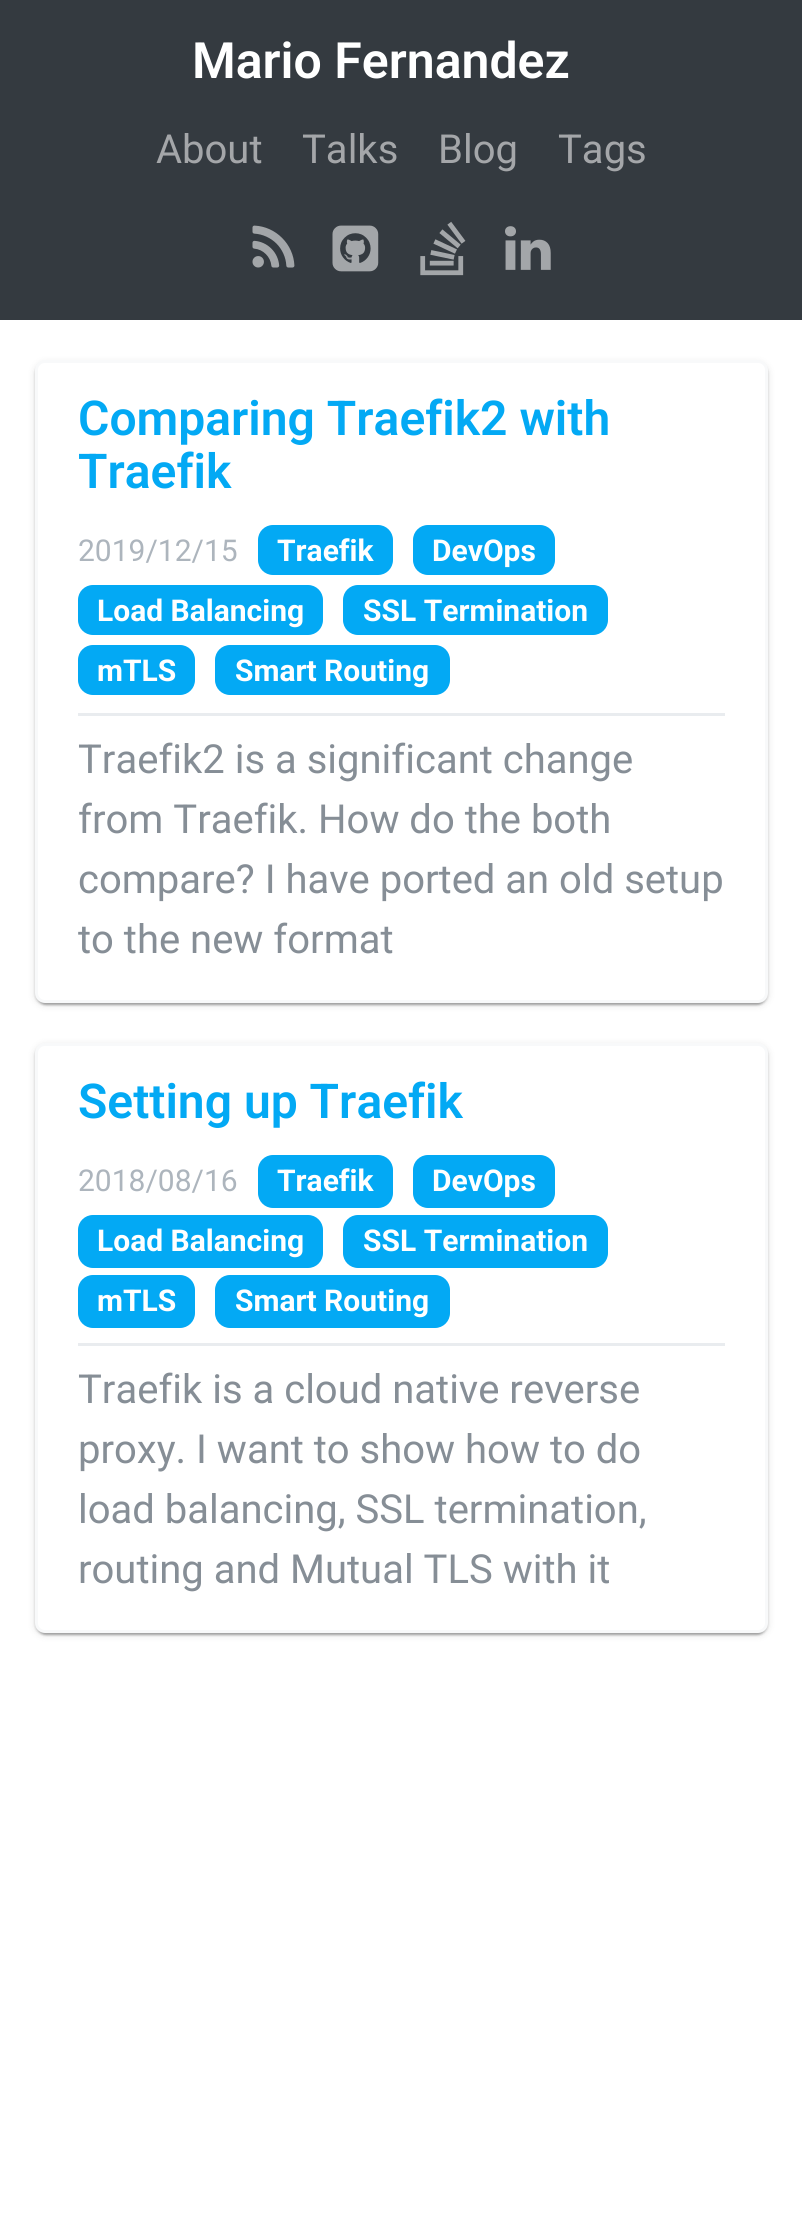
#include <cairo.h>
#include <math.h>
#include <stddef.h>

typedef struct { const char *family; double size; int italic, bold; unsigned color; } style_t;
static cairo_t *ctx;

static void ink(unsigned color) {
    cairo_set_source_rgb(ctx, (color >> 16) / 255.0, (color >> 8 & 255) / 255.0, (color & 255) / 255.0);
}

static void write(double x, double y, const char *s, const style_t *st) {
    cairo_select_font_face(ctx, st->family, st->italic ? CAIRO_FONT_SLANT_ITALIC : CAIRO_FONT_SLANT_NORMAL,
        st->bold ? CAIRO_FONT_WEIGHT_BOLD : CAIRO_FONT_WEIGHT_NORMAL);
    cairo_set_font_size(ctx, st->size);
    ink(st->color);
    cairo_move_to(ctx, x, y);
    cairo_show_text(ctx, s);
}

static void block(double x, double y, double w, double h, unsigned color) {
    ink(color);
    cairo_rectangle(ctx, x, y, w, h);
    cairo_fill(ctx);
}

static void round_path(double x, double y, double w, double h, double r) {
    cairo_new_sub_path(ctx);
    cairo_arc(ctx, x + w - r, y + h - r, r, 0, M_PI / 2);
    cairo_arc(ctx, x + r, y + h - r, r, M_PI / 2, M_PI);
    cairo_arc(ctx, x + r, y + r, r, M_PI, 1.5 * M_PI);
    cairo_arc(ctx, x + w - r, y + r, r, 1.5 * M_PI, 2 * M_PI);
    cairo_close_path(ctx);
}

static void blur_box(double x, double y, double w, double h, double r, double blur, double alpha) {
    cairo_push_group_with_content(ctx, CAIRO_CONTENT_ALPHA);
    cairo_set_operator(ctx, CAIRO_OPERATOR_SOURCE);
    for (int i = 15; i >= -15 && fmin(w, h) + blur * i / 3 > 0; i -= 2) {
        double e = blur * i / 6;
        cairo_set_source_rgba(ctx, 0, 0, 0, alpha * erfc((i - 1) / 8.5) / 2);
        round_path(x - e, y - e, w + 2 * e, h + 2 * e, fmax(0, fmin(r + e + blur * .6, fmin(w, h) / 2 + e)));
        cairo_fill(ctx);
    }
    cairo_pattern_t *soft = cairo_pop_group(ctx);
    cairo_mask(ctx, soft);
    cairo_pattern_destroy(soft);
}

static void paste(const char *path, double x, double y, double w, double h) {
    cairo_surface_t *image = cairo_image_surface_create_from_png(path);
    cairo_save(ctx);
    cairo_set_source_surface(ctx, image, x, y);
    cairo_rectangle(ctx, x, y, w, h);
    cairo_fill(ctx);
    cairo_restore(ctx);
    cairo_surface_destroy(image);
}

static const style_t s1 = {"Roboto SemiBold", 50, 0, 0, 0xffffff};
static const style_t s2 = {"Roboto", 40, 0, 0, 0xa4a6a9};
static const style_t s3 = {"Roboto SemiBold", 48, 0, 0, 0x03a9f4};
static const style_t s4 = {"Roboto", 30, 0, 0, 0xadb5bd};
static const style_t s5 = {"Roboto", 30, 0, 1, 0xffffff};
static const style_t s6 = {"Roboto", 40, 0, 0, 0x868e96};

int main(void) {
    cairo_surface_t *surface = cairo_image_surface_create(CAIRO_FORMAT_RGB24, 802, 2223);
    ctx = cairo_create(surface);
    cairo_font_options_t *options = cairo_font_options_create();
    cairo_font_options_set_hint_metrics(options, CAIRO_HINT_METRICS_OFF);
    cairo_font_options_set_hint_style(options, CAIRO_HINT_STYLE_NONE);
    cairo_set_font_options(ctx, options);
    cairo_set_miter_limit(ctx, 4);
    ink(0xffffff);
    cairo_paint(ctx);
    block(0, 0, 802, 320, 0x343a40);
    write(192, 78, "Mario Fernandez", &s1);
    write(156, 163, "About", &s2);
    write(302, 163, "Talks", &s2);
    write(438, 163, "Blog", &s2);
    write(558, 163, "Tags", &s2);
    paste("pic1.png", 252, 225, 43, 43);
    paste("pic2.png", 332, 225, 47, 47);
    paste("pic3.png", 420, 221, 46, 55);
    paste("pic4.png", 505, 226, 46, 44);
    ink(0x000000);
    blur_box(35, 363, 733, 642, 10, 4, 0.12);
    blur_box(35, 363, 733, 642, 10, 1, 0.14);
    blur_box(38, 368, 727, 637, 8, 1, 0.2);
    ink(0xffffff);
    round_path(36.5, 361.5, 730, 640, 8.5);
    cairo_fill_preserve(ctx);
    ink(0xf8f9fa);
    cairo_set_line_width(ctx, 3);
    cairo_stroke(ctx);
    block(78, 713, 647, 3, 0xe9ecef);
    write(78, 435, "Comparing Traefik2 with", &s3);
    write(78, 488, "Traefik", &s3);
    write(78, 561, "2019/12/15", &s4);
    ink(0x03a9f4);
    round_path(258, 525, 135, 50, 15);
    cairo_fill(ctx);
    write(277, 561, "Traefik", &s5);
    ink(0x03a9f4);
    round_path(413, 525, 142, 50, 15);
    cairo_fill(ctx);
    write(432, 561, "DevOps", &s5);
    ink(0x03a9f4);
    round_path(78, 585, 245, 50, 15);
    cairo_fill(ctx);
    write(97, 621, "Load Balancing", &s5);
    ink(0x03a9f4);
    round_path(343, 585, 265, 50, 15);
    cairo_fill(ctx);
    write(363, 621, "SSL Termination", &s5);
    ink(0x03a9f4);
    round_path(78, 645, 117, 50, 15);
    cairo_fill(ctx);
    write(97, 681, "mTLS", &s5);
    ink(0x03a9f4);
    round_path(215, 645, 235, 50, 15);
    cairo_fill(ctx);
    write(235, 681, "Smart Routing", &s5);
    write(78, 773, "Traefik2 is a significant change", &s6);
    write(78, 833, "from Traefik. How do the both", &s6);
    write(78, 893, "compare? I have ported an old setup", &s6);
    write(78, 953, "to the new format", &s6);
    ink(0x000000);
    blur_box(35, 1045, 733, 590, 10, 4, 0.12);
    blur_box(35, 1045, 733, 590, 10, 1, 0.14);
    blur_box(38, 1050, 727, 585, 8, 1, 0.2);
    ink(0xffffff);
    round_path(36.5, 1044.5, 730, 587, 8.5);
    cairo_fill_preserve(ctx);
    ink(0xf8f9fa);
    cairo_stroke(ctx);
    block(78, 1343, 647, 3, 0xe9ecef);
    write(78, 1118, "Setting up Traefik", &s3);
    write(78, 1191, "2018/08/16", &s4);
    ink(0x03a9f4);
    round_path(258, 1155, 135, 53, 15);
    cairo_fill(ctx);
    write(277, 1191, "Traefik", &s5);
    ink(0x03a9f4);
    round_path(413, 1155, 142, 53, 15);
    cairo_fill(ctx);
    write(432, 1191, "DevOps", &s5);
    ink(0x03a9f4);
    round_path(78, 1215, 245, 53, 15);
    cairo_fill(ctx);
    write(97, 1251, "Load Balancing", &s5);
    ink(0x03a9f4);
    round_path(343, 1215, 265, 53, 15);
    cairo_fill(ctx);
    write(363, 1251, "SSL Termination", &s5);
    ink(0x03a9f4);
    round_path(78, 1275, 117, 53, 15);
    cairo_fill(ctx);
    write(97, 1311, "mTLS", &s5);
    ink(0x03a9f4);
    round_path(215, 1275, 235, 53, 15);
    cairo_fill(ctx);
    write(235, 1311, "Smart Routing", &s5);
    write(78, 1403, "Traefik is a cloud native reverse", &s6);
    write(78, 1463, "proxy. I want to show how to do", &s6);
    write(78, 1523, "load balancing, SSL termination,", &s6);
    write(78, 1583, "routing and Mutual TLS with it", &s6);
    cairo_surface_write_to_png(surface, "screenshot.png");
    cairo_font_options_destroy(options);
    cairo_destroy(ctx);
    cairo_surface_destroy(surface);
    return 0;
}
